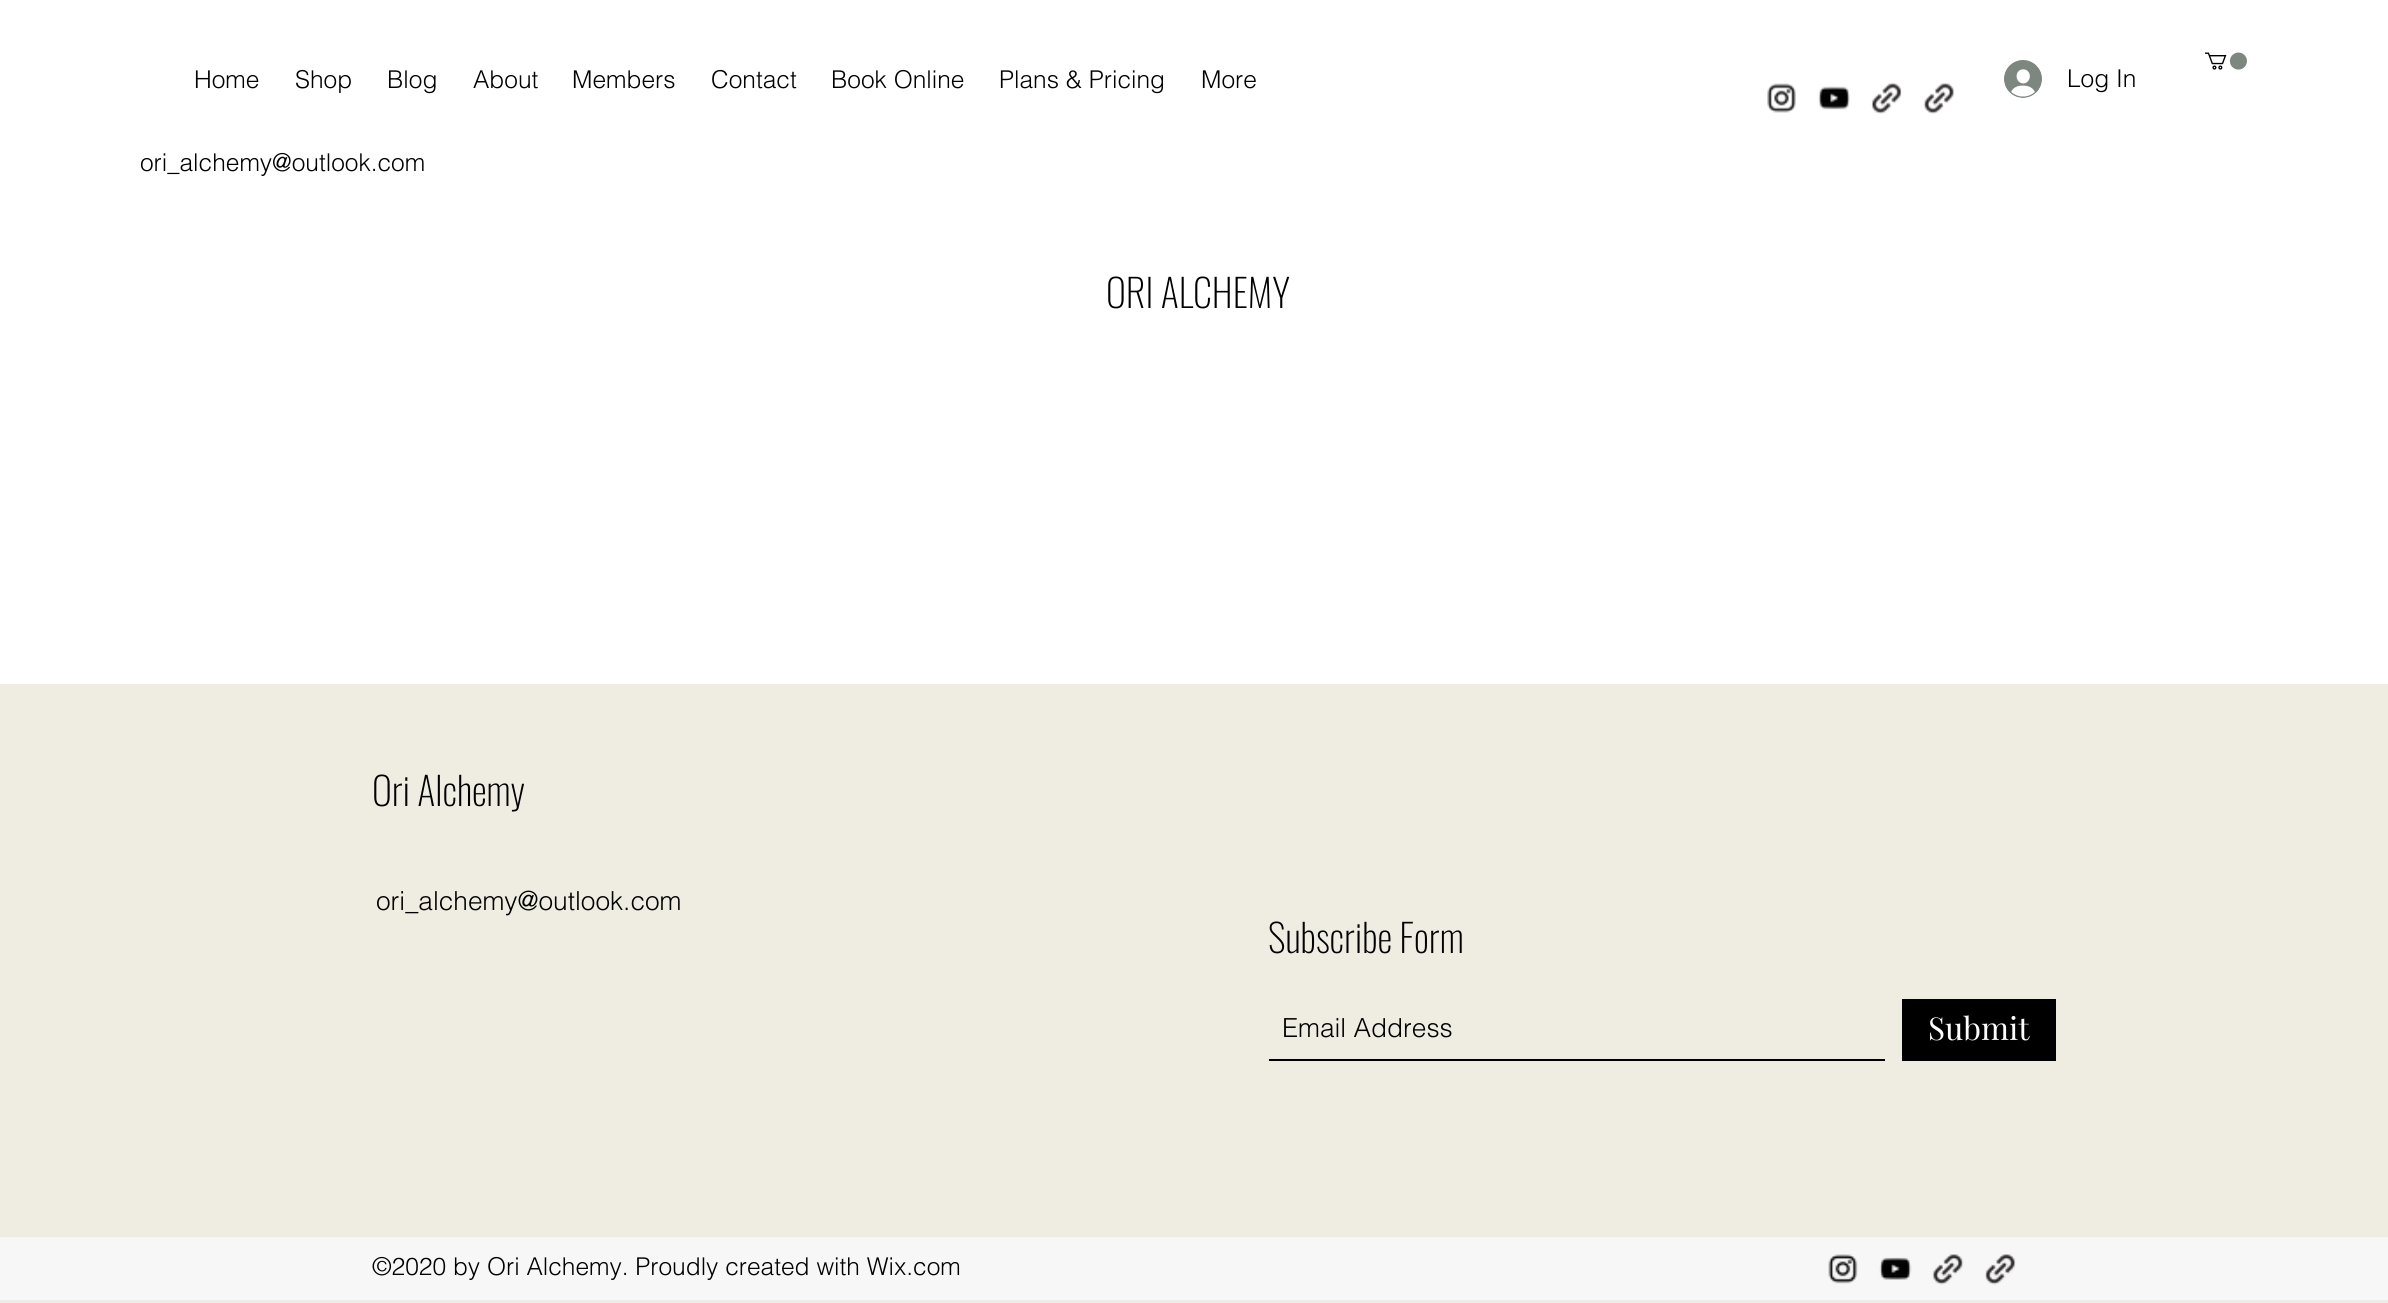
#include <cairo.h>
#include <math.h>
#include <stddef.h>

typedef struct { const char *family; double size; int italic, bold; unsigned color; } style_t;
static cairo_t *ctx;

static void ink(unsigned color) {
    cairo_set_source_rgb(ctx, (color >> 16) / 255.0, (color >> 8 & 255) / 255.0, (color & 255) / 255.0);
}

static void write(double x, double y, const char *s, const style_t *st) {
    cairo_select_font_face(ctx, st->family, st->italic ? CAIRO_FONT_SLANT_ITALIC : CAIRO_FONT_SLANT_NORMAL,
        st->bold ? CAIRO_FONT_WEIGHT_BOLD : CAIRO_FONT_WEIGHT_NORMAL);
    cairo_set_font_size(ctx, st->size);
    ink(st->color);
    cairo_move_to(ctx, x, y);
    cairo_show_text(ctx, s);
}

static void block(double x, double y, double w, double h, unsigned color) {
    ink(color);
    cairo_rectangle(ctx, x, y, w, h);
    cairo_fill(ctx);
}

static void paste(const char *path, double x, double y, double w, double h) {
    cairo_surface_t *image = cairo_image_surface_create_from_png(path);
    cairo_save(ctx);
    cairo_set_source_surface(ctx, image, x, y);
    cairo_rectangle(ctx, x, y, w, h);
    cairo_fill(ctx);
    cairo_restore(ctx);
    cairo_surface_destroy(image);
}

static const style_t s1 = {"helvetica Light", 24.5, 0, 0, 0x000000};
static const style_t s2 = {"Oswald ExtraLight", 38.5, 0, 0, 0x000000};
static const style_t s3 = {"helvetica Light", 26.25, 0, 0, 0x000000};
static const style_t s4 = {"Playfair Display", 31.5, 0, 0, 0xffffff};

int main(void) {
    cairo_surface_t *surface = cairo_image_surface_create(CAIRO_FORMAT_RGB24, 2388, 1303);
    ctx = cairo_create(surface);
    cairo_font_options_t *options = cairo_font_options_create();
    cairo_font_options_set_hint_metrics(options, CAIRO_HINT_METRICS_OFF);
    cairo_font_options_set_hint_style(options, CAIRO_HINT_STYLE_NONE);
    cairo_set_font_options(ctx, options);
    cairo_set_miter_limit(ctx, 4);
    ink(0xffffff);
    cairo_paint(ctx);
    write(194, 88, "Home", &s1);
    write(295, 88, "Shop", &s1);
    write(387, 88, "Blog", &s1);
    write(473, 88, "About", &s1);
    write(572, 88, "Members", &s1);
    write(711, 88, "Contact", &s1);
    write(831, 88, "Book Online", &s1);
    write(999, 88, "Plans & Pricing", &s1);
    write(1201, 88, "More", &s1);
    paste("pic1.png", 2205, 52, 42, 18);
    paste("pic2.png", 1767, 83, 29, 30);
    paste("pic3.png", 1818, 86, 32, 24);
    paste("pic4.png", 1871, 82, 31, 32);
    paste("pic5.png", 1923, 82, 32, 32);
    paste("pic6.png", 2004, 60, 38, 38);
    write(2067, 87, "Log In", &s1);
    write(140, 171, "ori_alchemy@outlook.com", &s1);
    write(1106, 308, "ORI ALCHEMY", &s2);
    block(0, 684, 2388, 619, 0xefece2);
    write(372, 806, "Ori Alchemy", &s2);
    write(376, 910, "ori_alchemy@outlook.com", &s3);
    write(1268, 953, "Subscribe Form", &s2);
    block(1269, 1059, 616, 2, 0x000000);
    write(1282, 1037, "Email Address", &s3);
    block(1902, 999, 154, 62, 0x000000);
    write(1928, 1040, "Submit", &s4);
    block(0, 1237, 2388, 63, 0xf7f7f7);
    write(372, 1275, "©2020 by Ori Alchemy. Proudly created with Wix.com", &s1);
    paste("pic7.png", 1828, 1254, 30, 30);
    paste("pic8.png", 1879, 1257, 33, 23);
    paste("pic9.png", 1932, 1254, 32, 31);
    paste("pic10.png", 1985, 1254, 31, 31);
    cairo_surface_write_to_png(surface, "screenshot.png");
    cairo_font_options_destroy(options);
    cairo_destroy(ctx);
    cairo_surface_destroy(surface);
    return 0;
}
